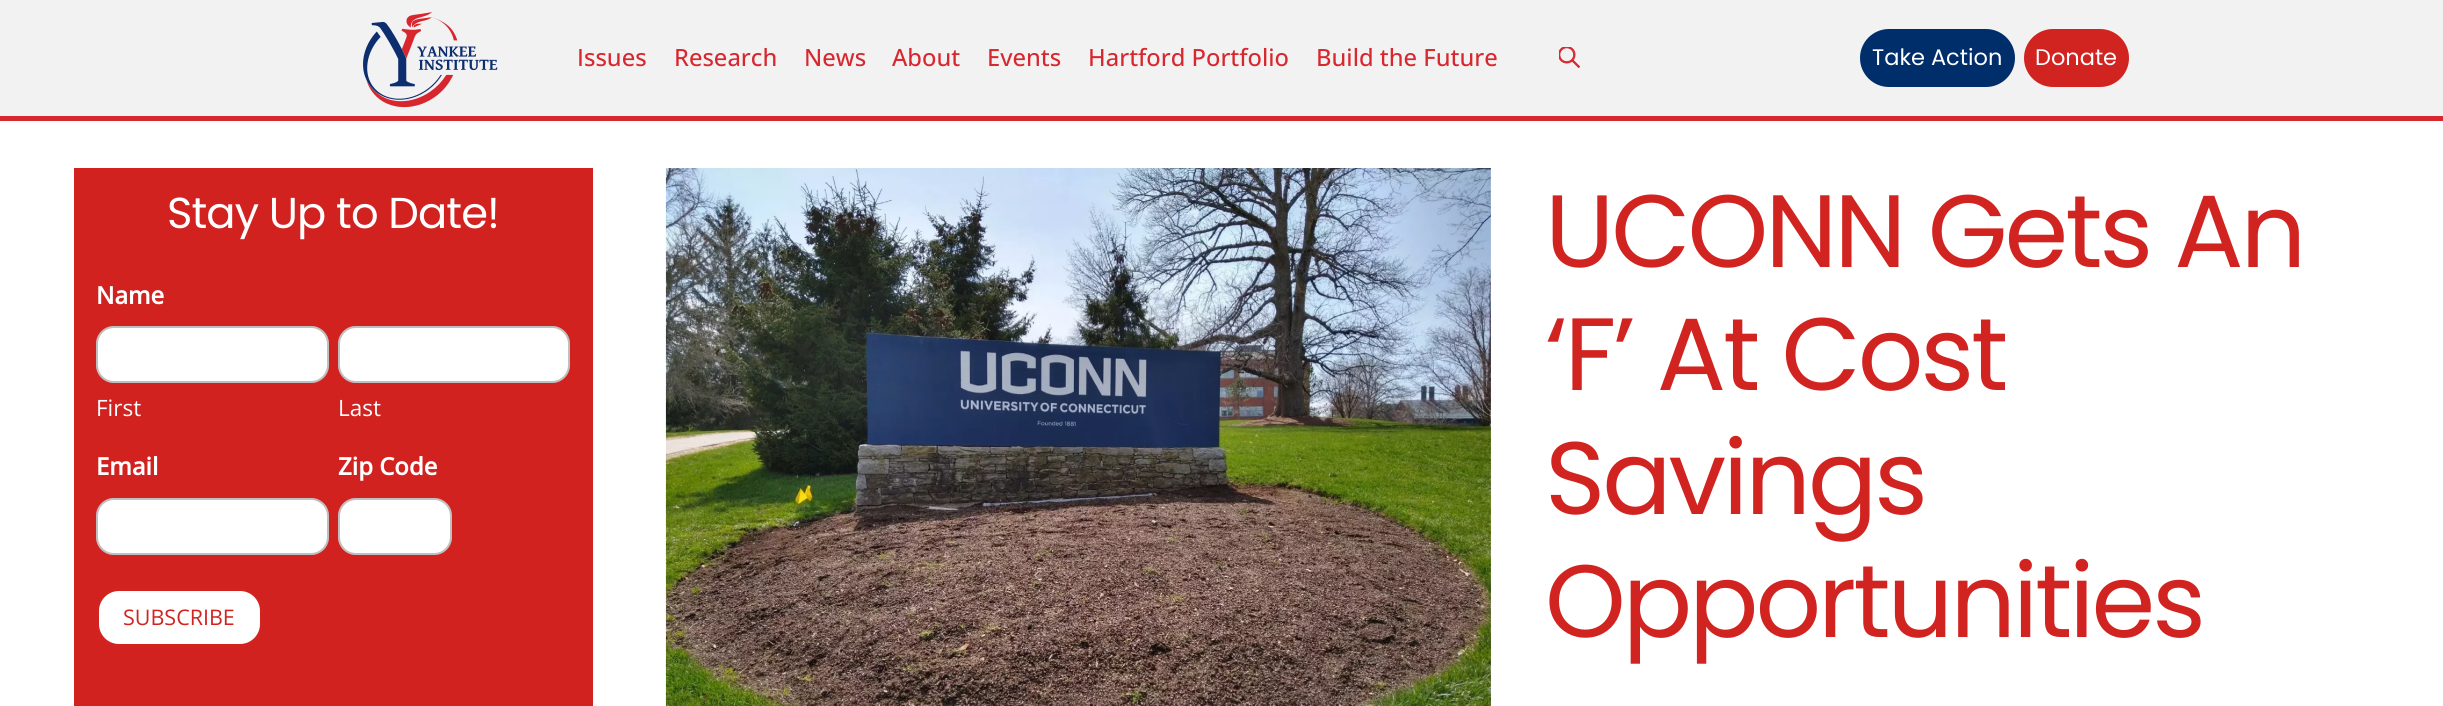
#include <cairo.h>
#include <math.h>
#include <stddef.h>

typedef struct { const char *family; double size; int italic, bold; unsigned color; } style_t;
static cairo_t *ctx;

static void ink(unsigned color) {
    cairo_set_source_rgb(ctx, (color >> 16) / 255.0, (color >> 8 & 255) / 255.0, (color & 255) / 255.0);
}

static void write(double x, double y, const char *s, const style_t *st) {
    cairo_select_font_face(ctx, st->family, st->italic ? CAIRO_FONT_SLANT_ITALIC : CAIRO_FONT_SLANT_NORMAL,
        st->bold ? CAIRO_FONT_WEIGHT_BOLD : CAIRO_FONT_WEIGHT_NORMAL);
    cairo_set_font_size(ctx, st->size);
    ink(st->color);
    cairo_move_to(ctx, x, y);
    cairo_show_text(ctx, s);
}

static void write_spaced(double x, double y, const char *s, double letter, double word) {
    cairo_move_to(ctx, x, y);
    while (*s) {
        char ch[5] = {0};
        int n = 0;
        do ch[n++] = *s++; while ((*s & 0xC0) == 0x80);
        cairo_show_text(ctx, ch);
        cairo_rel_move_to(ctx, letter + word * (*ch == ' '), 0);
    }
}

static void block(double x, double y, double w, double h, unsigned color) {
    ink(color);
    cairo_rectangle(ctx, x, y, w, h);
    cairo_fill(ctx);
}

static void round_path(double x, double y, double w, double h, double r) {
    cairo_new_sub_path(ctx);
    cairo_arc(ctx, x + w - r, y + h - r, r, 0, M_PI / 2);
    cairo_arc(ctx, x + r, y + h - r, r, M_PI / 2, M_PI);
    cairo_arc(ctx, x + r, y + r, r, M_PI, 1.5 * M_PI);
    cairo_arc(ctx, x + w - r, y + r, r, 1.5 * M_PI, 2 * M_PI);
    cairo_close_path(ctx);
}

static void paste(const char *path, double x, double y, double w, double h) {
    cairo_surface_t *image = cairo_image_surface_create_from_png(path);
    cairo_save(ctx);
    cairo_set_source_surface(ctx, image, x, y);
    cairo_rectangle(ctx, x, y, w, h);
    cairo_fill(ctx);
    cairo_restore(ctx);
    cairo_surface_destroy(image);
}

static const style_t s1 = {"Open Sans Medium", 23.75, 0, 0, 0xd7282f};
static const style_t s2 = {"Poppins", 22.5, 0, 0, 0xffffff};
static const style_t s3 = {"Open Sans", 24, 0, 1, 0xffffff};
static const style_t s4 = {"Open Sans", 22.5, 0, 0, 0xffffff};
static const style_t s5 = {"Open Sans", 21.5, 0, 0, 0xd12421};

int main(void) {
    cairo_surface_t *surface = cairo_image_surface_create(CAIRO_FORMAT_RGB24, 2443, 706);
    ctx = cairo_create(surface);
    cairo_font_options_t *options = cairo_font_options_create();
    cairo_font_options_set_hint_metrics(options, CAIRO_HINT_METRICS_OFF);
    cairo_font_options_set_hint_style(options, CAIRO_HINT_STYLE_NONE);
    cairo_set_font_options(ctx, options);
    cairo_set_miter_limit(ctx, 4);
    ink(0xffffff);
    cairo_paint(ctx);
    block(0, 0, 2443, 116, 0xf2f2f2);
    block(0, 116, 2443, 5, 0xd7282f);
    paste("pic1.png", 363, 12, 135, 96);
    write(577, 66, "Issues", &s1);
    write(674, 66, "Research", &s1);
    write(804, 66, "News", &s1);
    write(892, 66, "About", &s1);
    write(987, 66, "Events", &s1);
    write(1088, 66, "Hartford Portfolio", &s1);
    write(1316, 66, "Build the Future", &s1);
    paste("pic2.png", 1559, 47, 21, 21);
    ink(0x002e6b);
    round_path(1860, 29, 155, 58, 29);
    cairo_fill(ctx);
    write(1872, 65, "Take Action", &s2);
    ink(0xd12421);
    round_path(2024, 29, 105, 58, 29);
    cairo_fill(ctx);
    write(2035, 65, "Donate", &s2);
    block(74, 168, 519, 538, 0xd12220);
    cairo_set_font_size(ctx, 43.25);
    ink(0xffffff);
    write_spaced(167, 228, "Stay Up to Date!", -0.9, 0);
    write(96, 304, "Name", &s3);
    round_path(96, 326, 233, 57, 18);
    cairo_fill(ctx);
    round_path(97, 327, 231, 55, 17);
    cairo_set_source_rgba(ctx, 0, 0, 0, 0.25);
    cairo_stroke(ctx);
    write(96, 416, "First", &s4);
    round_path(338, 326, 232, 57, 18);
    cairo_fill(ctx);
    round_path(339, 327, 230, 55, 17);
    cairo_set_source_rgba(ctx, 0, 0, 0, 0.25);
    cairo_stroke(ctx);
    write(338, 416, "Last", &s4);
    write(96, 475, "Email", &s3);
    round_path(96, 498, 233, 57, 18);
    cairo_fill(ctx);
    round_path(97, 499, 231, 55, 17);
    cairo_set_source_rgba(ctx, 0, 0, 0, 0.25);
    cairo_stroke(ctx);
    write(338, 475, "Zip Code", &s3);
    round_path(338, 498, 114, 57, 18);
    cairo_fill(ctx);
    round_path(339, 499, 112, 55, 17);
    cairo_set_source_rgba(ctx, 0, 0, 0, 0.25);
    cairo_stroke(ctx);
    ink(0xffffff);
    round_path(97.5, 589.5, 164, 56, 21.5);
    cairo_fill_preserve(ctx);
    ink(0xd12421);
    cairo_set_line_width(ctx, 3);
    cairo_stroke(ctx);
    write(123, 625, "SUBSCRIBE", &s5);
    paste("pic3.png", 665, 168, 826, 538);
    cairo_select_font_face(ctx, "Poppins", CAIRO_FONT_SLANT_NORMAL, CAIRO_FONT_WEIGHT_NORMAL);
    cairo_set_font_size(ctx, 102.75);
    write_spaced(1545, 267, "UCONN Gets An", -3.1, 0);
    write_spaced(1545, 390, "‘F’ At Cost", -3.1, 0);
    write_spaced(1545, 514, "Savings", -3.1, 0);
    write_spaced(1545, 637, "Opportunities", -3.1, 0);
    cairo_surface_write_to_png(surface, "screenshot.png");
    cairo_font_options_destroy(options);
    cairo_destroy(ctx);
    cairo_surface_destroy(surface);
    return 0;
}
